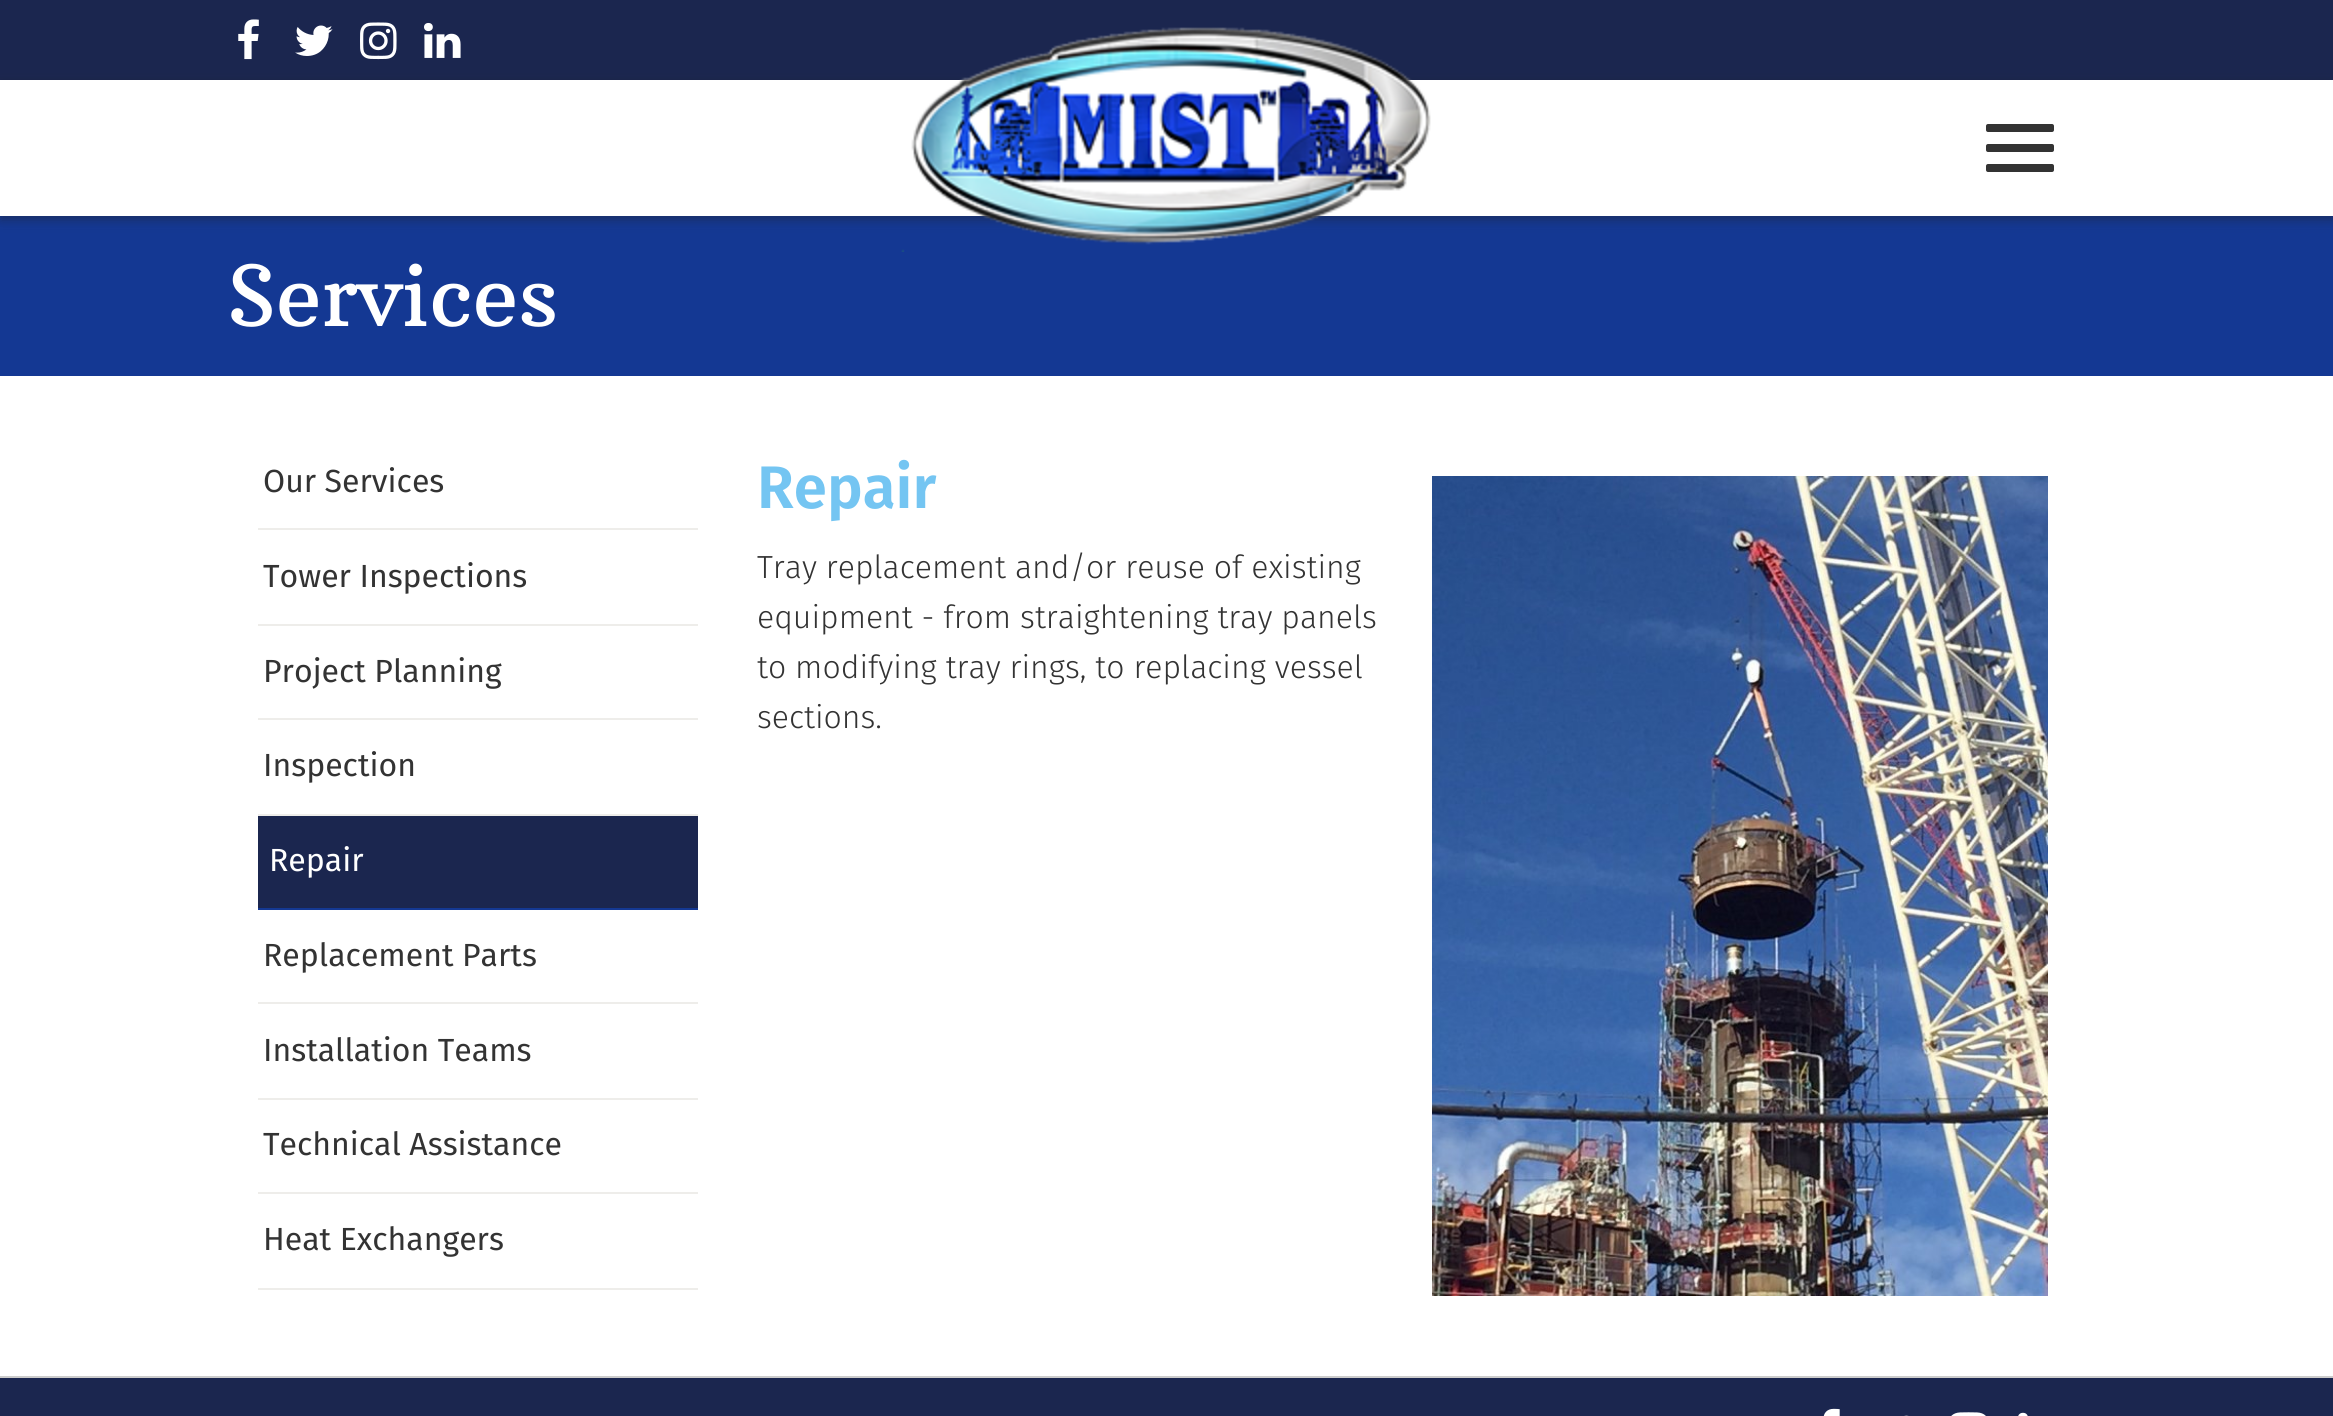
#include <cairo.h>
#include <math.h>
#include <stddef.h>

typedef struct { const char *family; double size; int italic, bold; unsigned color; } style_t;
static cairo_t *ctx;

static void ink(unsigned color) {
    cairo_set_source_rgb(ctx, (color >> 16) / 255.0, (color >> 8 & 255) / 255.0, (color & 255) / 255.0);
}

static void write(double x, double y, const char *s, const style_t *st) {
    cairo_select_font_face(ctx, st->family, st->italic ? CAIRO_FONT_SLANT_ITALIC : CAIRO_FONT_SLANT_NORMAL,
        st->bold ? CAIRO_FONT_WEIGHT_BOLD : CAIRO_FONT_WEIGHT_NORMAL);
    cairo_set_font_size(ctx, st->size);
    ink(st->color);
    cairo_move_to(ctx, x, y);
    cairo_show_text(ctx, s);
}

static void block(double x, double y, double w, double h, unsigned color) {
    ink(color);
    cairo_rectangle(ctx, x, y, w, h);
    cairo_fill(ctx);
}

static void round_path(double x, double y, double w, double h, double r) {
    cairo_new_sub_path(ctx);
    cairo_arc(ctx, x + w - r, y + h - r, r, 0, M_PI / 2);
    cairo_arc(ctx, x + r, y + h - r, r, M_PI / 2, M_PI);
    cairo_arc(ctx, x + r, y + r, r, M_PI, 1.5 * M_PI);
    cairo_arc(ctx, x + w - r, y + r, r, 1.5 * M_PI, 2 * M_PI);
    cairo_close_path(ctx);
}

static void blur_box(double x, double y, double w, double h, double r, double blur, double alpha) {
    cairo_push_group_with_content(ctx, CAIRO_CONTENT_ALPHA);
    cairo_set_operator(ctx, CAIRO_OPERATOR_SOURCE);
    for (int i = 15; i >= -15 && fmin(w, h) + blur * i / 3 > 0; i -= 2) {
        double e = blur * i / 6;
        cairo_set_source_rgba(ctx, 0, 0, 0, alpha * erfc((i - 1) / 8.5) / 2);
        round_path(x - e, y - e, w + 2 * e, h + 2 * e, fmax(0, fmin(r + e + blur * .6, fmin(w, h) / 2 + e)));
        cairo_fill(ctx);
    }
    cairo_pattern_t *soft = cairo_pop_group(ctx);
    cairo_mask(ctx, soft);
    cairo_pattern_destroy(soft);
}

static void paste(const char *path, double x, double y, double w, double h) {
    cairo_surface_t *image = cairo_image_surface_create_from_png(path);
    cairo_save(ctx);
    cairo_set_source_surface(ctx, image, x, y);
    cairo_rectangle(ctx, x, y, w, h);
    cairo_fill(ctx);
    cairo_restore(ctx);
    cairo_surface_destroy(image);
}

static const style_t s1 = {"Arbutus Slab", 84, 0, 0, 0xffffff};
static const style_t s2 = {"Fira Sans", 32, 0, 0, 0x333333};
static const style_t s3 = {"Fira Sans", 32, 0, 0, 0xffffff};
static const style_t s4 = {"Fira Sans SemiBold", 60, 0, 0, 0x74c5f2};
static const style_t s5 = {"Fira Sans Light", 32, 0, 0, 0x333333};

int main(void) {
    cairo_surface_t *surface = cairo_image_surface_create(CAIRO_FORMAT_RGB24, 2333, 1416);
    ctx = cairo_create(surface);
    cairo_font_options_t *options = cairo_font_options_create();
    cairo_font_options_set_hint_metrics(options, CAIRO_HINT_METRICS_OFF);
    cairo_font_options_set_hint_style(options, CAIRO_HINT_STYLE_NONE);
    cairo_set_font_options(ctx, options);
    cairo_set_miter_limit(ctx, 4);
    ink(0xffffff);
    cairo_paint(ctx);
    block(0, 0, 2333, 80, 0x1b264f);
    paste("pic1.png", 238, 19, 21, 41);
    paste("pic2.png", 295, 25, 38, 31);
    paste("pic3.png", 360, 22, 37, 38);
    paste("pic4.png", 424, 22, 37, 36);
    block(0, 216, 2333, 160, 0x143893);
    cairo_save(ctx);
    cairo_set_fill_rule(ctx, CAIRO_FILL_RULE_EVEN_ODD);
    cairo_new_path(ctx);
    cairo_move_to(ctx, 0, 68);
    cairo_line_to(ctx, 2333, 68);
    cairo_line_to(ctx, 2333, 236);
    cairo_line_to(ctx, 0, 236);
    cairo_close_path(ctx);
    cairo_move_to(ctx, 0, 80);
    cairo_line_to(ctx, 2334, 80);
    cairo_line_to(ctx, 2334, 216);
    cairo_line_to(ctx, 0, 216);
    cairo_close_path(ctx);
    cairo_clip(ctx);
    ink(0x212121);
    blur_box(0, 84, 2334, 136, 0, 5, 0.4);
    cairo_restore(ctx);
    paste("pic5.png", 901, 27, 530, 225);
    ink(0x333333);
    round_path(1986, 124, 68, 8, 2);
    cairo_fill(ctx);
    round_path(1986, 144, 68, 8, 2);
    cairo_fill(ctx);
    round_path(1986, 164, 68, 8, 2);
    cairo_fill(ctx);
    write(227, 326, "Services", &s1);
    block(258, 528, 440, 2, 0xeeedea);
    write(263, 492, "Our Services", &s2);
    block(258, 624, 440, 2, 0xeeedea);
    write(263, 587, "Tower Inspections", &s2);
    block(258, 718, 440, 2, 0xeeedea);
    write(263, 682, "Project Planning", &s2);
    block(258, 814, 440, 2, 0xeeedea);
    write(263, 776, "Inspection", &s2);
    block(258, 816, 440, 92, 0x1b264f);
    block(258, 908, 440, 2, 0x143893);
    write(269, 871, "Repair", &s3);
    block(258, 1002, 440, 2, 0xeeedea);
    write(263, 966, "Replacement Parts", &s2);
    block(258, 1098, 440, 2, 0xeeedea);
    write(263, 1061, "Installation Teams", &s2);
    block(258, 1192, 440, 2, 0xeeedea);
    write(263, 1155, "Technical Assistance", &s2);
    block(258, 1288, 440, 2, 0xeeedea);
    write(263, 1250, "Heat Exchangers", &s2);
    write(757, 508, "Repair", &s4);
    paste("pic6.png", 1432, 476, 616, 820);
    write(757, 578, "Tray replacement and/or reuse of existing", &s5);
    write(757, 628, "equipment - from straightening tray panels", &s5);
    write(757, 678, "to modifying tray rings, to replacing vessel", &s5);
    write(757, 728, "sections.", &s5);
    block(0, 1378, 2333, 38, 0x1b264f);
    block(0, 1376, 2333, 2, 0xcccccc);
    paste("pic7.png", 1823, 1408, 17, 8);
    paste("pic8.png", 1904, 1415, 5, 1);
    paste("pic9.png", 1951, 1412, 35, 4);
    paste("pic10.png", 2018, 1412, 10, 4);
    cairo_surface_write_to_png(surface, "screenshot.png");
    cairo_font_options_destroy(options);
    cairo_destroy(ctx);
    cairo_surface_destroy(surface);
    return 0;
}
